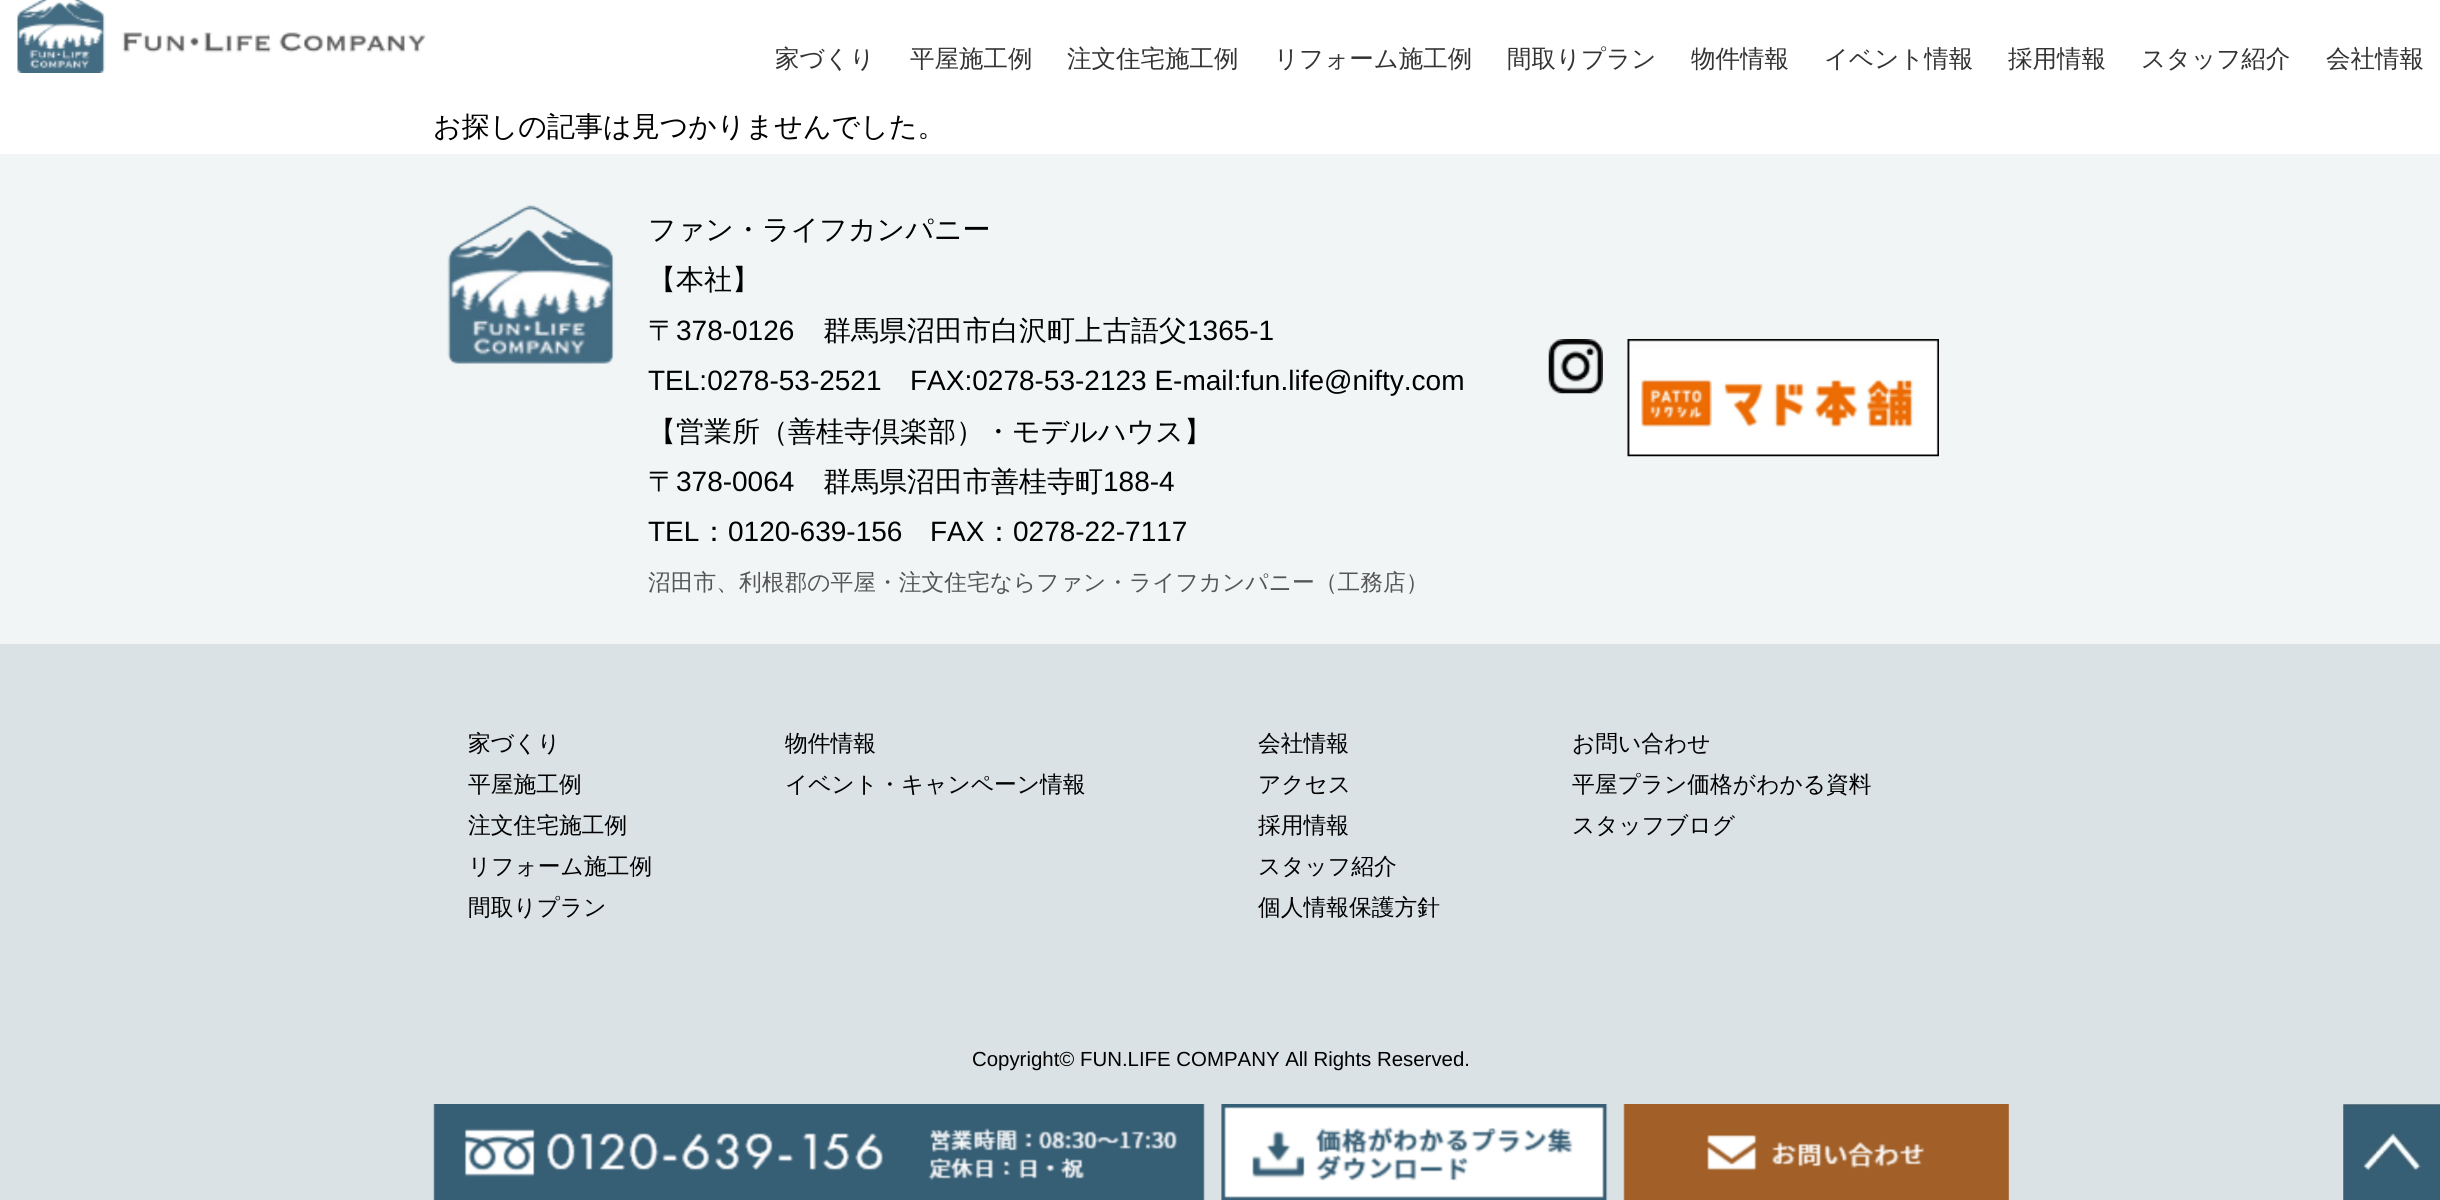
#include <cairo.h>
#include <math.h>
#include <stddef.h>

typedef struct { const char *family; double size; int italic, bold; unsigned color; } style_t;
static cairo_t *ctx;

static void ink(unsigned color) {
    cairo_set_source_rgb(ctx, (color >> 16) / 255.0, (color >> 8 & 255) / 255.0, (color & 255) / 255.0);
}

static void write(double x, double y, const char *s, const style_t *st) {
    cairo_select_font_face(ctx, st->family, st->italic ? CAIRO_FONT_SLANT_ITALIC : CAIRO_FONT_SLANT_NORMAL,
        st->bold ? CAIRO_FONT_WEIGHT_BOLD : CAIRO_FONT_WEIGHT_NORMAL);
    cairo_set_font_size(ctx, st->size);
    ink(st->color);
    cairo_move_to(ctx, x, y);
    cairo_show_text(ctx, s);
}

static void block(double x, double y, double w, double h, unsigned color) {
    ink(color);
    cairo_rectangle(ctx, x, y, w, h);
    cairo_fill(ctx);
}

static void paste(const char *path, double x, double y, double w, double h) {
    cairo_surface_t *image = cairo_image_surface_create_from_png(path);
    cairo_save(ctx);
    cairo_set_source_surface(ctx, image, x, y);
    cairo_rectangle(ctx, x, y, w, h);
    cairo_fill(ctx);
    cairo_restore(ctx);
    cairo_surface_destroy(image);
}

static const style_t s1 = {"WenQuanYi Zen Hei Medium", 24.5, 0, 0, 0x333333};
static const style_t s2 = {"WenQuanYi Zen Hei Medium", 28, 0, 0, 0x000000};
static const style_t s3 = {"Liberation Sans", 28, 0, 0, 0x000000};
static const style_t s4 = {"WenQuanYi Zen Hei Medium", 22.75, 0, 0, 0x555555};
static const style_t s5 = {"WenQuanYi Zen Hei Medium", 22.75, 0, 0, 0x000000};
static const style_t s6 = {"Liberation Sans", 20.4, 0, 0, 0x000000};

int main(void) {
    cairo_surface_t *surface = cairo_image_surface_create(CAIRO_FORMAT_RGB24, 2440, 1200);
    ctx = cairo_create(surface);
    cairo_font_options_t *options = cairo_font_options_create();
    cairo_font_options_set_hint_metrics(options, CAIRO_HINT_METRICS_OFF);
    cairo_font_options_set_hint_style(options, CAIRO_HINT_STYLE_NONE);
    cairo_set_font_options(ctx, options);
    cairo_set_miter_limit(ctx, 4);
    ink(0xffffff);
    cairo_paint(ctx);
    paste("pic1.png", 17, 0, 409, 73);
    write(775, 67, "家づくり", &s1);
    write(910, 67, "平屋施工例", &s1);
    write(1067, 67, "注文住宅施工例", &s1);
    write(1274, 67, "リフォーム施工例", &s1);
    write(1507, 67, "間取りプラン", &s1);
    write(1691, 67, "物件情報", &s1);
    write(1824, 67, "イベント情報", &s1);
    write(2008, 67, "採用情報", &s1);
    write(2141, 67, "スタッフ紹介", &s1);
    write(2326, 67, "会社情報", &s1);
    write(433, 136, "お探しの記事は見つかりませんでした。", &s2);
    block(0, 154, 2440, 490, 0xf1f5f6);
    paste("pic2.png", 447, 205, 168, 159);
    write(648, 239, "ファン・ライフカンパニー", &s2);
    write(648, 289, "【本社】", &s2);
    write(648, 340, "〒", &s2);
    write(676, 340, "378-0126", &s3);
    write(823, 340, "群馬県沼田市白沢町上古語父", &s2);
    write(1187, 340, "1365-1", &s3);
    write(648, 390, "TEL:0278-53-2521", &s3);
    write(910, 390, "FAX:0278-53-2123 E-mail:fun.life@nifty.com", &s3);
    write(648, 441, "【営業所（善桂寺倶楽部）・モデルハウス】", &s2);
    write(648, 491, "〒", &s2);
    write(676, 491, "378-0064", &s3);
    write(823, 491, "群馬県沼田市善桂寺町", &s2);
    write(1103, 491, "188-4", &s3);
    write(648, 541, "TEL", &s3);
    write(700, 541, "：", &s2);
    write(728, 541, "0120-639-156", &s3);
    write(930, 541, "FAX", &s3);
    write(985, 541, "：", &s2);
    write(1013, 541, "0278-22-7117", &s3);
    write(648, 590, "沼田市、利根郡の平屋・注文住宅ならファン・ライフカンパニー（工務店）", &s4);
    paste("pic3.png", 1548, 339, 55, 55);
    paste("pic4.png", 1627, 339, 312, 118);
    block(0, 644, 2440, 556, 0xdae2e5);
    write(468, 751, "家づくり", &s5);
    write(468, 792, "平屋施工例", &s5);
    write(468, 833, "注文住宅施工例", &s5);
    write(468, 874, "リフォーム施工例", &s5);
    write(468, 915, "間取りプラン", &s5);
    write(785, 751, "物件情報", &s5);
    write(785, 792, "イベント・キャンペーン情報", &s5);
    write(1258, 751, "会社情報", &s5);
    write(1258, 792, "アクセス", &s5);
    write(1258, 833, "採用情報", &s5);
    write(1258, 874, "スタッフ紹介", &s5);
    write(1258, 915, "個人情報保護方針", &s5);
    write(1572, 751, "お問い合わせ", &s5);
    write(1572, 792, "平屋プラン価格がわかる資料", &s5);
    write(1572, 833, "スタッフブログ", &s5);
    write(972, 1066, "Copyright© FUN.LIFE COMPANY All Rights Reserved.", &s6);
    paste("pic5.png", 433, 1104, 772, 96);
    paste("pic6.png", 1221, 1104, 387, 96);
    paste("pic7.png", 1623, 1104, 386, 96);
    paste("pic8.png", 2343, 1104, 97, 96);
    cairo_surface_write_to_png(surface, "screenshot.png");
    cairo_font_options_destroy(options);
    cairo_destroy(ctx);
    cairo_surface_destroy(surface);
    return 0;
}
